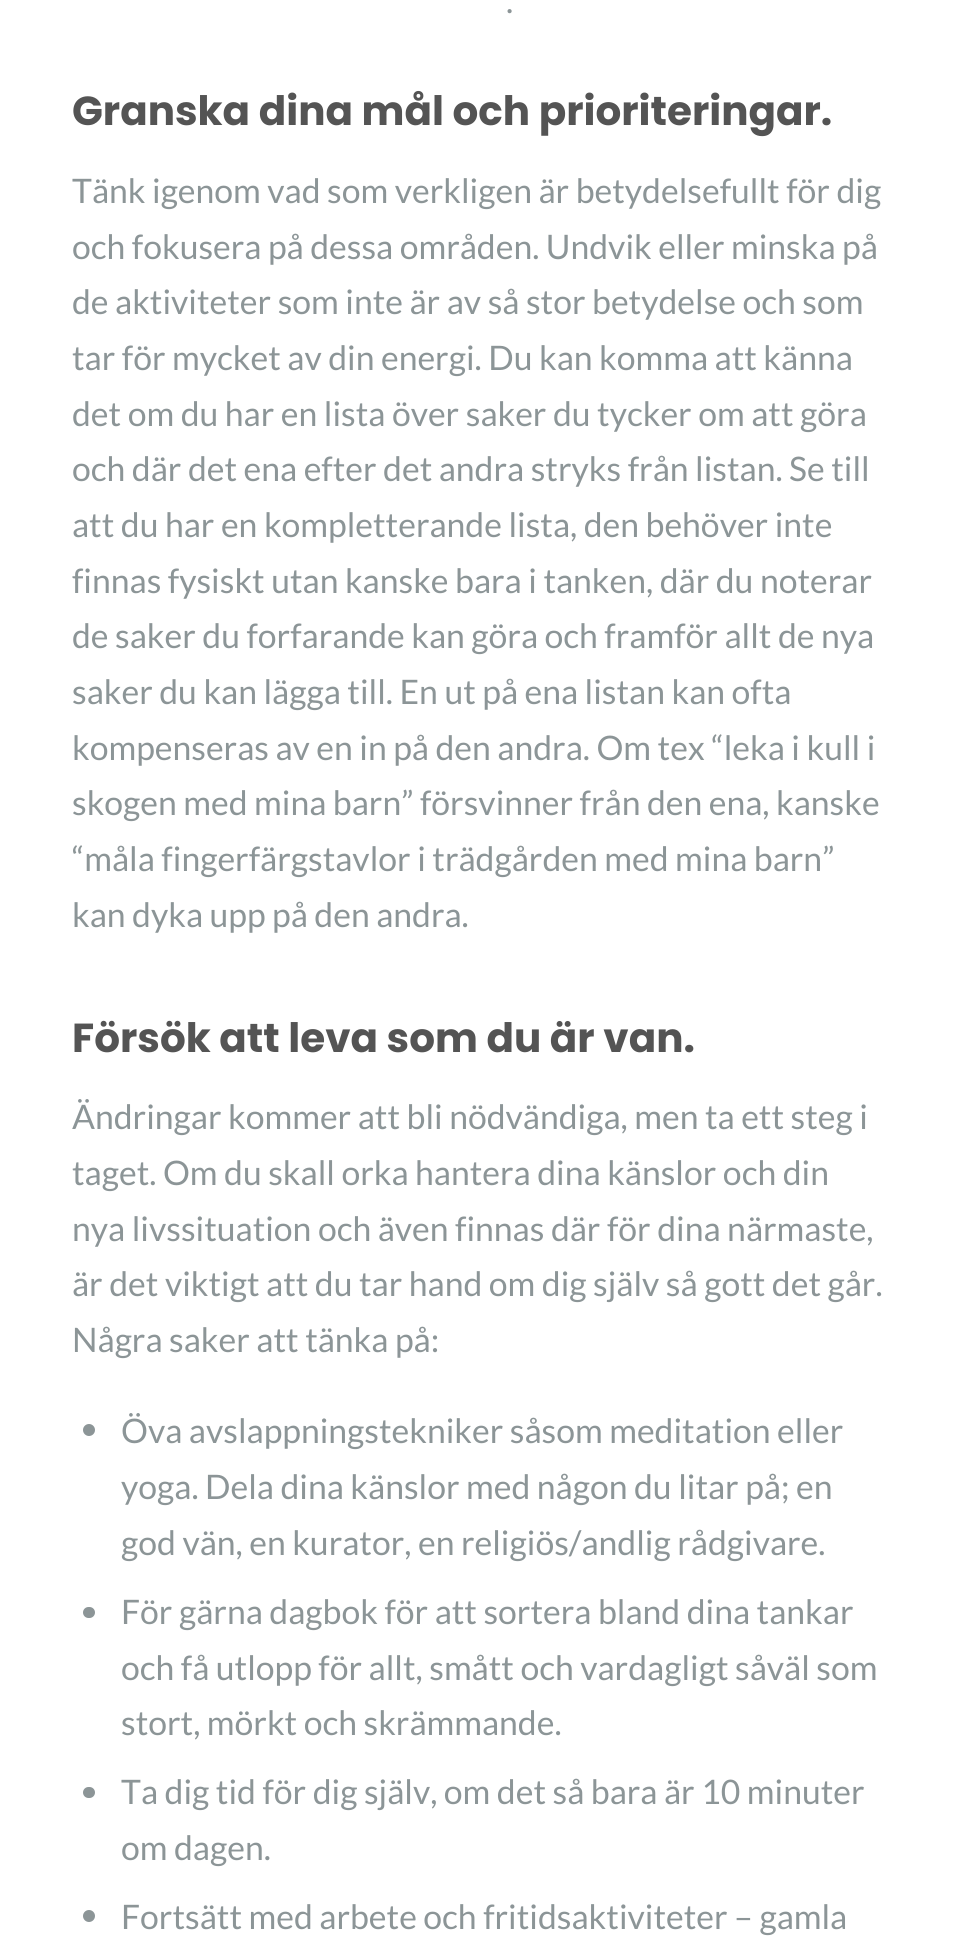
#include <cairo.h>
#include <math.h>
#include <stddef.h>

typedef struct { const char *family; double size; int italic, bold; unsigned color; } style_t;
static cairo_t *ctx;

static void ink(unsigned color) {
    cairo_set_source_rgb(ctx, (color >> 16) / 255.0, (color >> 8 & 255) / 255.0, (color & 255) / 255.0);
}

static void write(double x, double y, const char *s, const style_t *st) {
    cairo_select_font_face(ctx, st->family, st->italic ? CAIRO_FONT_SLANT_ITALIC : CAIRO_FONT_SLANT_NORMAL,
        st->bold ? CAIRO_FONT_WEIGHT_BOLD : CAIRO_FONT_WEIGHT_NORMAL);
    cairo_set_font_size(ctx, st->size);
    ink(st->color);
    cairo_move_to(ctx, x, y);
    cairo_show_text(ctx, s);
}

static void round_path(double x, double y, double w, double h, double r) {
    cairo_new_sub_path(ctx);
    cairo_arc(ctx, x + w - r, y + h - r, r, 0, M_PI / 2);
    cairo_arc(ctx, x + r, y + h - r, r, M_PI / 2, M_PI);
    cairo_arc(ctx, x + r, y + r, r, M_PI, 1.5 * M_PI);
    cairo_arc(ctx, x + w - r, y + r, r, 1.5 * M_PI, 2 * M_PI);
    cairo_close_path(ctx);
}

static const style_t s1 = {"Lato", 33.75, 0, 0, 0x8c9597};
static const style_t s2 = {"Poppins", 40.5, 0, 1, 0x545454};

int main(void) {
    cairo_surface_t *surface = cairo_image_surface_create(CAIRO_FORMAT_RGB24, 954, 1947);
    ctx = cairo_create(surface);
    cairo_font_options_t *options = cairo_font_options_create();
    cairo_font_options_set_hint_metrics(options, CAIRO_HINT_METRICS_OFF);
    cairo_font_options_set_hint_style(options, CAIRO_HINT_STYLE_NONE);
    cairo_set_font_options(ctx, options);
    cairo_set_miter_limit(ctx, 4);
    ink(0xffffff);
    cairo_paint(ctx);
    write(506, 13, ".", &s1);
    write(72, 125, "Granska dina mål och prioriteringar.", &s2);
    write(72, 203, "Tänk igenom vad som verkligen är betydelsefullt för dig", &s1);
    write(72, 259, "och fokusera på dessa områden. Undvik eller minska på", &s1);
    write(72, 314, "de aktiviteter som inte är av så stor betydelse och som", &s1);
    write(72, 370, "tar för mycket av din energi. Du kan komma att känna", &s1);
    write(72, 426, "det om du har en lista över saker du tycker om att göra", &s1);
    write(72, 481, "och där det ena efter det andra stryks från listan. Se till", &s1);
    write(72, 537, "att du har en kompletterande lista, den behöver inte", &s1);
    write(72, 593, "finnas fysiskt utan kanske bara i tanken, där du noterar", &s1);
    write(72, 648, "de saker du forfarande kan göra och framför allt de nya", &s1);
    write(72, 704, "saker du kan lägga till. En ut på ena listan kan ofta", &s1);
    write(72, 760, "kompenseras av en in på den andra. Om tex “leka i kull i", &s1);
    write(72, 815, "skogen med mina barn” försvinner från den ena, kanske", &s1);
    write(72, 871, "“måla fingerfärgstavlor i trädgården med mina barn”", &s1);
    write(72, 927, "kan dyka upp på den andra.", &s1);
    write(72, 1052, "Försök att leva som du är van.", &s2);
    write(72, 1129, "Ändringar kommer att bli nödvändiga, men ta ett steg i", &s1);
    write(72, 1185, "taget. Om du skall orka hantera dina känslor och din", &s1);
    write(72, 1241, "nya livssituation och även finnas där för dina närmaste,", &s1);
    write(72, 1296, "är det viktigt att du tar hand om dig själv så gott det går.", &s1);
    write(72, 1352, "Några saker att tänka på:", &s1);
    cairo_new_path(ctx);
    cairo_arc(ctx, 89, 1430, 6, 0, 2 * M_PI);
    cairo_fill(ctx);
    write(121, 1443, "Öva avslappningstekniker såsom meditation eller", &s1);
    write(121, 1499, "yoga. Dela dina känslor med någon du litar på; en", &s1);
    write(121, 1555, "god vän, en kurator, en religiös/andlig rådgivare.", &s1);
    round_path(83, 1607, 12, 11, 5.5);
    cairo_fill(ctx);
    write(121, 1624, "För gärna dagbok för att sortera bland dina tankar", &s1);
    write(121, 1680, "och få utlopp för allt, smått och vardagligt såväl som", &s1);
    write(121, 1735, "stort, mörkt och skrämmande.", &s1);
    round_path(83, 1787, 12, 11, 5.5);
    cairo_fill(ctx);
    write(121, 1804, "Ta dig tid för dig själv, om det så bara är 10 minuter", &s1);
    write(121, 1860, "om dagen.", &s1);
    cairo_new_path(ctx);
    cairo_arc(ctx, 89, 1916, 6, 0, 2 * M_PI);
    cairo_fill(ctx);
    write(121, 1929, "Fortsätt med arbete och fritidsaktiviteter – gamla", &s1);
    cairo_surface_write_to_png(surface, "screenshot.png");
    cairo_font_options_destroy(options);
    cairo_destroy(ctx);
    cairo_surface_destroy(surface);
    return 0;
}
